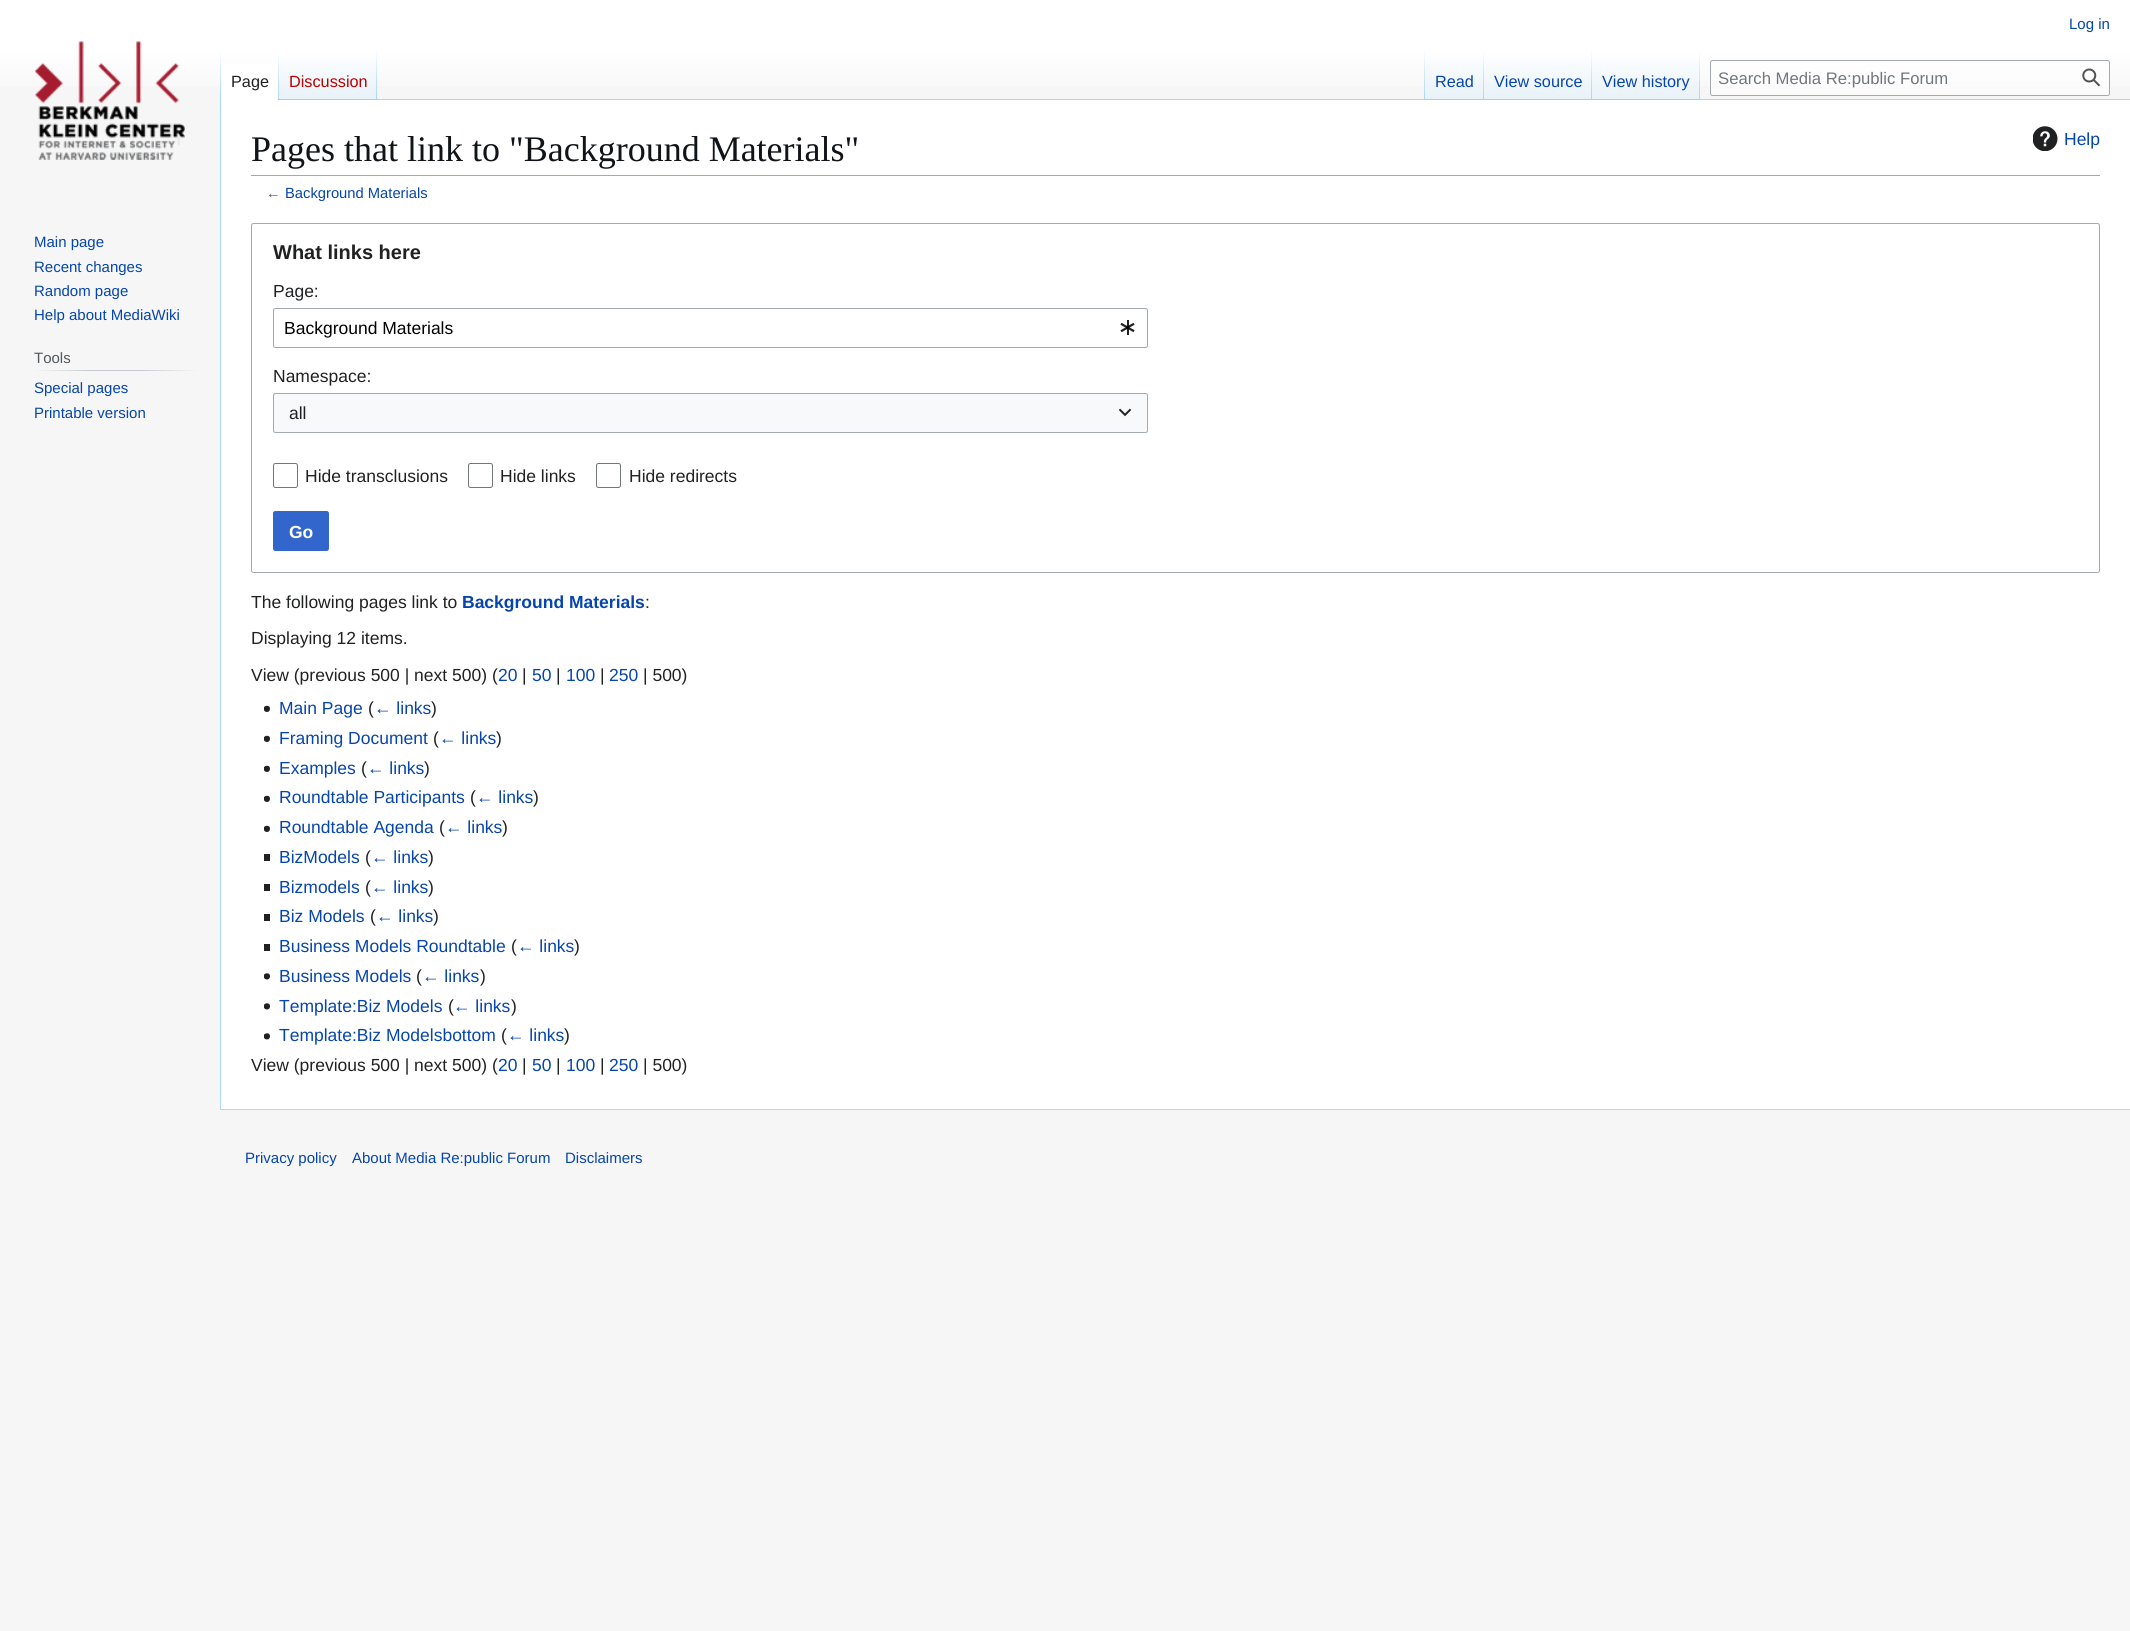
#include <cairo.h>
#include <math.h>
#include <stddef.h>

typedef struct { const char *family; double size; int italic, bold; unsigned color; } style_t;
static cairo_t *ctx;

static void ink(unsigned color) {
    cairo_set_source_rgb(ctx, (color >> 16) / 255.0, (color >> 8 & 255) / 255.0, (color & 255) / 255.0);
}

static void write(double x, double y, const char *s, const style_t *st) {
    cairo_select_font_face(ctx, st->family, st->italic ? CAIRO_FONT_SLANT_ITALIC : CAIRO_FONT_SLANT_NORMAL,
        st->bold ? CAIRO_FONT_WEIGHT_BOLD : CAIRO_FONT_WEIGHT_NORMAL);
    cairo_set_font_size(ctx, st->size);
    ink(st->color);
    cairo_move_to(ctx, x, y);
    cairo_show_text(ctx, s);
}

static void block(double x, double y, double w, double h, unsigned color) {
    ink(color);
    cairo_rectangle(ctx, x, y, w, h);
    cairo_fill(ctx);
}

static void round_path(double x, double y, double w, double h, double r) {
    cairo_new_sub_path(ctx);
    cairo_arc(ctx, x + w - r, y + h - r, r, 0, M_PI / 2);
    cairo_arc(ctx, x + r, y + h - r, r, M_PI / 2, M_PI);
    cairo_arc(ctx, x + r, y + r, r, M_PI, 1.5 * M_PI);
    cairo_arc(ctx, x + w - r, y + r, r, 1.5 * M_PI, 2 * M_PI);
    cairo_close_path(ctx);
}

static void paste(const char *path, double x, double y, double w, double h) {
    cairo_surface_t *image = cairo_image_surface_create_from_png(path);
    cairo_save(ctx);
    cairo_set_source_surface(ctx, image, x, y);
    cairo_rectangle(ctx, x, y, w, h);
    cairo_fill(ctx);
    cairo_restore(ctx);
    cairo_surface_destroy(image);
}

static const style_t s1 = {"Liberation Sans", 15, 0, 0, 0x0645ad};
static const style_t s2 = {"Liberation Sans", 16.25, 0, 0, 0x202122};
static const style_t s3 = {"Liberation Sans", 16.25, 0, 0, 0xba0000};
static const style_t s4 = {"Liberation Sans", 16.25, 0, 0, 0x0645ad};
static const style_t s5 = {"Liberation Sans", 16.7, 0, 0, 0x72777d};
static const style_t s6 = {"Liberation Sans", 15, 0, 0, 0x54595d};
static const style_t s7 = {"Liberation Serif", 36, 0, 0, 0x101418};
static const style_t s8 = {"Liberation Sans", 17.5, 0, 0, 0x0645ad};
static const style_t s9 = {"Liberation Sans", 14.75, 0, 0, 0x54595d};
static const style_t s10 = {"Liberation Sans", 14.75, 0, 0, 0x0645ad};
static const style_t s11 = {"Liberation Sans", 20, 0, 1, 0x202122};
static const style_t s12 = {"Liberation Sans", 17.5, 0, 0, 0x202122};
static const style_t s13 = {"Liberation Sans", 17.5, 0, 0, 0x000000};
static const style_t s14 = {"Liberation Sans", 17.5, 0, 1, 0xffffff};
static const style_t s15 = {"Liberation Sans", 17.5, 0, 1, 0x0645ad};

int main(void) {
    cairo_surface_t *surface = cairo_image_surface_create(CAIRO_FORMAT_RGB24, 2130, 1631);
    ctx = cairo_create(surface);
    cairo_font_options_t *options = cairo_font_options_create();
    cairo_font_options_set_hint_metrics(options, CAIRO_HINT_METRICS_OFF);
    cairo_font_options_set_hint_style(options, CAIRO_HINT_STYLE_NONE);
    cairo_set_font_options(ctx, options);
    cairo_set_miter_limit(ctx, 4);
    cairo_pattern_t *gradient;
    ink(0xf6f6f6);
    cairo_paint(ctx);
    gradient = cairo_pattern_create_linear(1065, 0, 1065, 100);
    cairo_pattern_add_color_stop_rgba(gradient, 0.5, 1, 1, 1, 1);
    cairo_pattern_add_color_stop_rgba(gradient, 1, 0.965, 0.965, 0.965, 1);
    cairo_set_source(ctx, gradient);
    cairo_pattern_destroy(gradient);
    cairo_rectangle(ctx, 0, 0, 2130, 86);
    cairo_fill(ctx);
    write(2069, 29, "Log in", &s1);
    block(220, 1109, 1910, 1, 0xa7d7f9);
    block(220, 99, 1, 1011, 0xa7d7f9);
    gradient = cairo_pattern_create_linear(221, 50, 221, 100);
    cairo_pattern_add_color_stop_rgba(gradient, 0, 0.655, 0.843, 0.976, 0);
    cairo_pattern_add_color_stop_rgba(gradient, 1, 0.655, 0.843, 0.976, 1);
    cairo_set_source(ctx, gradient);
    cairo_pattern_destroy(gradient);
    cairo_rectangle(ctx, 220, 50, 1, 50);
    cairo_fill(ctx);
    block(221, 64, 57, 36, 0xffffff);
    gradient = cairo_pattern_create_linear(278, 50, 278, 100);
    cairo_pattern_add_color_stop_rgba(gradient, 0, 1, 1, 1, 1);
    cairo_pattern_add_color_stop_rgba(gradient, 1, 0.655, 0.843, 0.976, 1);
    cairo_set_source(ctx, gradient);
    cairo_pattern_destroy(gradient);
    cairo_rectangle(ctx, 278, 50, 1, 50);
    cairo_fill(ctx);
    write(231, 87, "Page", &s2);
    gradient = cairo_pattern_create_linear(328, 100, 328, 50);
    cairo_pattern_add_color_stop_rgba(gradient, 0, 0.467, 0.757, 0.965, 1);
    cairo_pattern_add_color_stop_rgba(gradient, 0.03, 0.91, 0.949, 0.973, 1);
    cairo_pattern_add_color_stop_rgba(gradient, 1, 1, 1, 1, 1);
    cairo_set_source(ctx, gradient);
    cairo_pattern_destroy(gradient);
    cairo_rectangle(ctx, 279, 57, 99, 43);
    cairo_fill(ctx);
    gradient = cairo_pattern_create_linear(377, 50, 377, 100);
    cairo_pattern_add_color_stop_rgba(gradient, 0, 0.655, 0.843, 0.976, 0);
    cairo_pattern_add_color_stop_rgba(gradient, 1, 0.655, 0.843, 0.976, 1);
    cairo_set_source(ctx, gradient);
    cairo_pattern_destroy(gradient);
    cairo_rectangle(ctx, 376, 50, 1, 50);
    cairo_fill(ctx);
    write(289, 87, "Discussion", &s3);
    block(378, 99, 1752, 1, 0xa7d7f9);
    gradient = cairo_pattern_create_linear(1424, 50, 1424, 100);
    cairo_pattern_add_color_stop_rgba(gradient, 0, 0.655, 0.843, 0.976, 0);
    cairo_pattern_add_color_stop_rgba(gradient, 1, 0.655, 0.843, 0.976, 1);
    cairo_set_source(ctx, gradient);
    cairo_pattern_destroy(gradient);
    cairo_rectangle(ctx, 1424, 50, 1, 50);
    cairo_fill(ctx);
    gradient = cairo_pattern_create_linear(1454, 100, 1454, 50);
    cairo_pattern_add_color_stop_rgba(gradient, 0, 0.467, 0.757, 0.965, 1);
    cairo_pattern_add_color_stop_rgba(gradient, 0.03, 0.91, 0.949, 0.973, 1);
    cairo_pattern_add_color_stop_rgba(gradient, 1, 1, 1, 1, 1);
    cairo_set_source(ctx, gradient);
    cairo_pattern_destroy(gradient);
    cairo_rectangle(ctx, 1425, 57, 59, 43);
    cairo_fill(ctx);
    gradient = cairo_pattern_create_linear(1483, 50, 1483, 100);
    cairo_pattern_add_color_stop_rgba(gradient, 0, 0.655, 0.843, 0.976, 0);
    cairo_pattern_add_color_stop_rgba(gradient, 1, 0.655, 0.843, 0.976, 1);
    cairo_set_source(ctx, gradient);
    cairo_pattern_destroy(gradient);
    cairo_rectangle(ctx, 1483, 50, 1, 50);
    cairo_fill(ctx);
    write(1435, 87, "Read", &s4);
    gradient = cairo_pattern_create_linear(1538, 100, 1538, 50);
    cairo_pattern_add_color_stop_rgba(gradient, 0, 0.467, 0.757, 0.965, 1);
    cairo_pattern_add_color_stop_rgba(gradient, 0.03, 0.91, 0.949, 0.973, 1);
    cairo_pattern_add_color_stop_rgba(gradient, 1, 1, 1, 1, 1);
    cairo_set_source(ctx, gradient);
    cairo_pattern_destroy(gradient);
    cairo_rectangle(ctx, 1484, 57, 109, 43);
    cairo_fill(ctx);
    gradient = cairo_pattern_create_linear(1592, 50, 1592, 100);
    cairo_pattern_add_color_stop_rgba(gradient, 0, 0.655, 0.843, 0.976, 0);
    cairo_pattern_add_color_stop_rgba(gradient, 1, 0.655, 0.843, 0.976, 1);
    cairo_set_source(ctx, gradient);
    cairo_pattern_destroy(gradient);
    cairo_rectangle(ctx, 1591, 50, 1, 50);
    cairo_fill(ctx);
    write(1494, 87, "View source", &s4);
    gradient = cairo_pattern_create_linear(1646, 100, 1646, 50);
    cairo_pattern_add_color_stop_rgba(gradient, 0, 0.467, 0.757, 0.965, 1);
    cairo_pattern_add_color_stop_rgba(gradient, 0.03, 0.91, 0.949, 0.973, 1);
    cairo_pattern_add_color_stop_rgba(gradient, 1, 1, 1, 1, 1);
    cairo_set_source(ctx, gradient);
    cairo_pattern_destroy(gradient);
    cairo_rectangle(ctx, 1593, 57, 107, 43);
    cairo_fill(ctx);
    gradient = cairo_pattern_create_linear(1699, 50, 1699, 100);
    cairo_pattern_add_color_stop_rgba(gradient, 0, 0.655, 0.843, 0.976, 0);
    cairo_pattern_add_color_stop_rgba(gradient, 1, 0.655, 0.843, 0.976, 1);
    cairo_set_source(ctx, gradient);
    cairo_pattern_destroy(gradient);
    cairo_rectangle(ctx, 1699, 50, 1, 50);
    cairo_fill(ctx);
    write(1602, 87, "View history", &s4);
    cairo_set_source_rgba(ctx, 1, 1, 1, 0.5);
    round_path(1710.5, 60.5, 399, 35, 2);
    cairo_fill_preserve(ctx);
    ink(0xa2a9b1);
    cairo_set_line_width(ctx, 1);
    cairo_stroke(ctx);
    write(1718, 84, "Search Media Re:public Forum", &s5);
    paste("pic1.png", 2082, 68, 19, 19);
    paste("pic2.png", 35, 41, 150, 119);
    write(34, 247, "Main page", &s1);
    write(34, 272, "Recent changes", &s1);
    write(34, 296, "Random page", &s1);
    write(34, 320, "Help about MediaWiki", &s1);
    gradient = cairo_pattern_create_linear(34, 371, 198, 371);
    cairo_pattern_add_color_stop_rgba(gradient, 0, 0.965, 0.965, 0.965, 1);
    cairo_pattern_add_color_stop_rgba(gradient, 0.33, 0.784, 0.8, 0.82, 1);
    cairo_pattern_add_color_stop_rgba(gradient, 0.66, 0.784, 0.8, 0.82, 1);
    cairo_pattern_add_color_stop_rgba(gradient, 1, 0.965, 0.965, 0.965, 1);
    cairo_set_source(ctx, gradient);
    cairo_pattern_destroy(gradient);
    cairo_rectangle(ctx, 34, 370, 164, 1);
    cairo_fill(ctx);
    write(34, 363, "Tools", &s6);
    write(34, 393, "Special pages", &s1);
    write(34, 418, "Printable version", &s1);
    block(221, 100, 1909, 1009, 0xffffff);
    block(251, 175, 1849, 1, 0xa2a9b1);
    write(251, 161, "Pages that link to \"Background Materials\"", &s7);
    paste("pic3.png", 2033, 126, 25, 25);
    write(2064, 145, "Help", &s8);
    write(266, 198, "←", &s9);
    write(285, 198, "Background Materials", &s10);
    round_path(251.5, 223.5, 1848, 349, 2);
    ink(0xa2a9b1);
    cairo_stroke(ctx);
    write(273, 259, "What links here", &s11);
    write(273, 297, "Page:", &s12);
    round_path(273.5, 308.5, 874, 39, 2);
    ink(0xa2a9b1);
    cairo_stroke(ctx);
    write(284, 334, "Background Materials", &s13);
    paste("pic4.png", 1120, 320, 15, 15);
    write(273, 382, "Namespace:", &s12);
    block(273, 393, 875, 40, 0xf8f9fa);
    round_path(273.5, 393.5, 874, 39, 2);
    ink(0xa2a9b1);
    cairo_stroke(ctx);
    write(289, 419, "all", &s12);
    paste("pic5.png", 1119, 408, 13, 9);
    round_path(273.5, 463.5, 24, 24, 2);
    ink(0x72777d);
    cairo_stroke(ctx);
    write(305, 482, "Hide transclusions", &s12);
    round_path(468.5, 463.5, 24, 24, 2);
    ink(0x72777d);
    cairo_stroke(ctx);
    write(500, 482, "Hide links", &s12);
    round_path(596.5, 463.5, 24, 24, 2);
    ink(0x72777d);
    cairo_stroke(ctx);
    write(629, 482, "Hide redirects", &s12);
    ink(0x3366cc);
    round_path(273.5, 511.5, 55, 39, 2);
    cairo_fill_preserve(ctx);
    cairo_stroke(ctx);
    write(289, 538, "Go", &s14);
    write(251, 608, "The following pages link to", &s12);
    write(462, 608, "Background Materials", &s15);
    write(645, 608, ":", &s12);
    write(251, 644, "Displaying 12 items.", &s12);
    write(251, 681, "View (previous 500 | next 500) (", &s12);
    write(498, 681, "20", &s8);
    write(522, 681, "|", &s12);
    write(532, 681, "50", &s8);
    write(556, 681, "|", &s12);
    write(566, 681, "100", &s8);
    write(600, 681, "|", &s12);
    write(609, 681, "250", &s8);
    write(643, 681, "| 500)", &s12);
    paste("pic6.png", 264, 705, 6, 7);
    write(279, 714, "Main Page", &s8);
    write(368, 714, "(", &s12);
    write(374, 714, "← links", &s8);
    write(431, 714, ")", &s12);
    paste("pic6.png", 264, 735, 6, 7);
    write(279, 744, "Framing Document", &s8);
    write(433, 744, "(", &s12);
    write(439, 744, "← links", &s8);
    write(496, 744, ")", &s12);
    paste("pic6.png", 264, 765, 6, 7);
    write(279, 774, "Examples", &s8);
    write(361, 774, "(", &s12);
    write(367, 774, "← links", &s8);
    write(424, 774, ")", &s12);
    paste("pic6.png", 264, 795, 6, 7);
    write(279, 803, "Roundtable Participants", &s8);
    write(470, 803, "(", &s12);
    write(476, 803, "← links", &s8);
    write(533, 803, ")", &s12);
    paste("pic6.png", 264, 825, 6, 7);
    write(279, 833, "Roundtable Agenda", &s8);
    write(439, 833, "(", &s12);
    write(445, 833, "← links", &s8);
    write(502, 833, ")", &s12);
    block(264, 854, 6, 7, 0x202122);
    write(279, 863, "BizModels", &s8);
    write(365, 863, "(", &s12);
    write(371, 863, "← links", &s8);
    write(428, 863, ")", &s12);
    block(264, 884, 6, 7, 0x202122);
    write(279, 893, "Bizmodels", &s8);
    write(365, 893, "(", &s12);
    write(371, 893, "← links", &s8);
    write(428, 893, ")", &s12);
    block(264, 914, 6, 7, 0x202122);
    write(279, 922, "Biz Models", &s8);
    write(370, 922, "(", &s12);
    write(376, 922, "← links", &s8);
    write(433, 922, ")", &s12);
    block(264, 944, 6, 7, 0x202122);
    write(279, 952, "Business Models Roundtable", &s8);
    write(511, 952, "(", &s12);
    write(517, 952, "← links", &s8);
    write(574, 952, ")", &s12);
    paste("pic7.png", 264, 973, 6, 7);
    write(279, 982, "Business Models", &s8);
    write(416, 982, "(", &s12);
    write(422, 982, "← links", &s8);
    write(480, 982, ")", &s12);
    paste("pic7.png", 264, 1003, 6, 7);
    write(279, 1012, "Template:Biz Models", &s8);
    write(448, 1012, "(", &s12);
    write(453, 1012, "← links", &s8);
    write(511, 1012, ")", &s12);
    paste("pic7.png", 264, 1033, 6, 7);
    write(279, 1041, "Template:Biz Modelsbottom", &s8);
    write(501, 1041, "(", &s12);
    write(507, 1041, "← links", &s8);
    write(564, 1041, ")", &s12);
    write(251, 1071, "View (previous 500 | next 500) (", &s12);
    write(498, 1071, "20", &s8);
    write(522, 1071, "|", &s12);
    write(532, 1071, "50", &s8);
    write(556, 1071, "|", &s12);
    write(566, 1071, "100", &s8);
    write(600, 1071, "|", &s12);
    write(609, 1071, "250", &s8);
    write(643, 1071, "| 500)", &s12);
    write(245, 1163, "Privacy policy", &s1);
    write(352, 1163, "About Media Re:public Forum", &s1);
    write(565, 1163, "Disclaimers", &s1);
    cairo_surface_write_to_png(surface, "screenshot.png");
    cairo_font_options_destroy(options);
    cairo_destroy(ctx);
    cairo_surface_destroy(surface);
    return 0;
}
